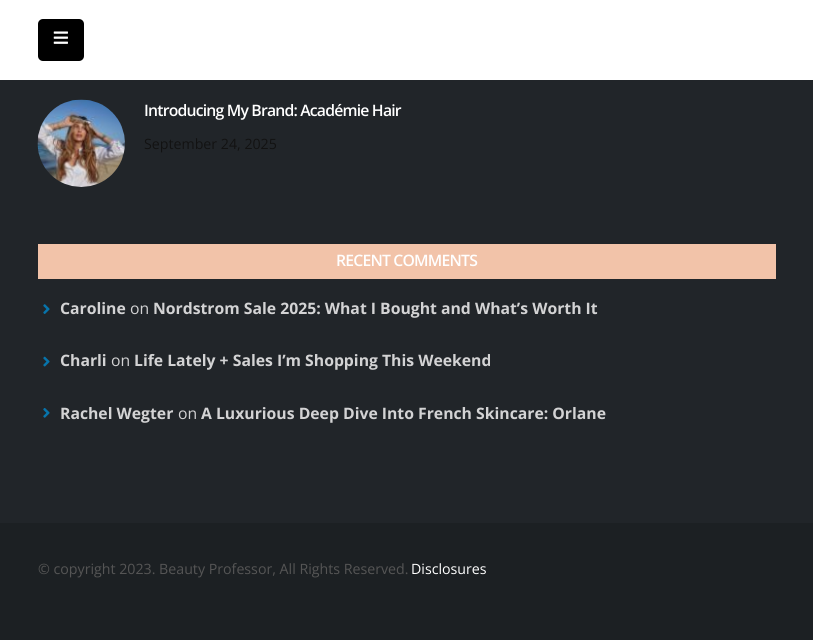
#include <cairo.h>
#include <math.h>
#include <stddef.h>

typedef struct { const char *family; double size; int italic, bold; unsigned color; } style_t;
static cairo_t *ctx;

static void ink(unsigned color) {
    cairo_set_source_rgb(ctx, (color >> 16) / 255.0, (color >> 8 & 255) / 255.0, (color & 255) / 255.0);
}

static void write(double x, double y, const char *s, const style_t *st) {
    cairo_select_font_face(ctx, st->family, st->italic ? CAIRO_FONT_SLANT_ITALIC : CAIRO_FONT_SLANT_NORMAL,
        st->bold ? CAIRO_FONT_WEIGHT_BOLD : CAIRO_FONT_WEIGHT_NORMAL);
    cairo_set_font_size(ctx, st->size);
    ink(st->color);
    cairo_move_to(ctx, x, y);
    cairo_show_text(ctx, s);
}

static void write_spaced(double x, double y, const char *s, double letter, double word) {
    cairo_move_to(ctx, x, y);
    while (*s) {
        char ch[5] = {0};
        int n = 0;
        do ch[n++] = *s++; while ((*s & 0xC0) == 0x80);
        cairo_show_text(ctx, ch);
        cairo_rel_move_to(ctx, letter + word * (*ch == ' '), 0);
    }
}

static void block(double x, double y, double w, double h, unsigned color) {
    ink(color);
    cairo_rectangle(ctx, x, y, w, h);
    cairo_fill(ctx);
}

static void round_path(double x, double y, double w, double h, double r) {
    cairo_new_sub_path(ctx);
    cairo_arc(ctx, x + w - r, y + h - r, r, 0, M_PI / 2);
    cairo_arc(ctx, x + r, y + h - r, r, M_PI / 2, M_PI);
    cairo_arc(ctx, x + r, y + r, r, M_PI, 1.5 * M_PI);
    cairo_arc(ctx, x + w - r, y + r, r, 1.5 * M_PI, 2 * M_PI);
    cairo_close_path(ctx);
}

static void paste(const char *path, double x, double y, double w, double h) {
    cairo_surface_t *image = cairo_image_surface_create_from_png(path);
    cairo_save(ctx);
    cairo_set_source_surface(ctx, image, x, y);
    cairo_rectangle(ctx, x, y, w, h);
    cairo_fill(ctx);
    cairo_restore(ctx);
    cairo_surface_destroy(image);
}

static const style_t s1 = {"Open Sans", 14.2, 0, 0, 0x121212};
static const style_t s2 = {"Open Sans", 15.75, 0, 1, 0xd3d3d4};
static const style_t s3 = {"Open Sans", 15.75, 0, 0, 0xd3d3d4};
static const style_t s4 = {"Open Sans", 14.2, 0, 0, 0x555555};
static const style_t s5 = {"Open Sans", 14.2, 0, 0, 0xffffff};

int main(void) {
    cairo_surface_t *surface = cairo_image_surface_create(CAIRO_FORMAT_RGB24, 813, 640);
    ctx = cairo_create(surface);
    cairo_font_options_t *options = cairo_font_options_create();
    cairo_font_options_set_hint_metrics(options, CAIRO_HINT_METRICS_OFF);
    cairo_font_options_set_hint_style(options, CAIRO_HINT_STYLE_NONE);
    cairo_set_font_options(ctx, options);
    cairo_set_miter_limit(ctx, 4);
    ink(0x212529);
    cairo_paint(ctx);
    block(0, 0, 813, 80, 0xffffff);
    ink(0x000000);
    round_path(38, 19, 46, 42, 5);
    cairo_fill(ctx);
    paste("pic1.png", 53, 31, 15, 13);
    paste("pic2.png", 37, 99, 88, 88);
    cairo_select_font_face(ctx, "Open Sans SemiBold", CAIRO_FONT_SLANT_NORMAL, CAIRO_FONT_WEIGHT_NORMAL);
    cairo_set_font_size(ctx, 15.75);
    ink(0xffffff);
    write_spaced(144, 116, "Introducing My Brand: Académie Hair", -0.8, 0);
    write(144, 149, "September 24, 2025", &s1);
    block(38, 244, 738, 35, 0xf2c3a9);
    cairo_select_font_face(ctx, "Open Sans SemiBold", CAIRO_FONT_SLANT_NORMAL, CAIRO_FONT_WEIGHT_NORMAL);
    cairo_set_font_size(ctx, 15.75);
    ink(0xffffff);
    write_spaced(336, 266, "RECENT COMMENTS", -0.8, 0);
    paste("pic3.png", 43, 304, 7, 10);
    write(60, 314, "Caroline", &s2);
    write(130, 314, "on", &s3);
    write(153, 314, "Nordstrom Sale 2025: What I Bought and What’s Worth It", &s2);
    paste("pic4.png", 43, 356, 7, 11);
    write(60, 366, "Charli", &s2);
    write(111, 366, "on", &s3);
    write(134, 366, "Life Lately + Sales I’m Shopping This Weekend", &s2);
    paste("pic5.png", 43, 408, 7, 10);
    write(60, 419, "Rachel Wegter", &s2);
    write(178, 419, "on", &s3);
    write(201, 419, "A Luxurious Deep Dive Into French Skincare: Orlane", &s2);
    block(0, 523, 813, 117, 0x1c2023);
    write(38, 574, "© copyright 2023. Beauty Professor, All Rights Reserved.", &s4);
    write(411, 574, "Disclosures", &s5);
    cairo_surface_write_to_png(surface, "screenshot.png");
    cairo_font_options_destroy(options);
    cairo_destroy(ctx);
    cairo_surface_destroy(surface);
    return 0;
}
